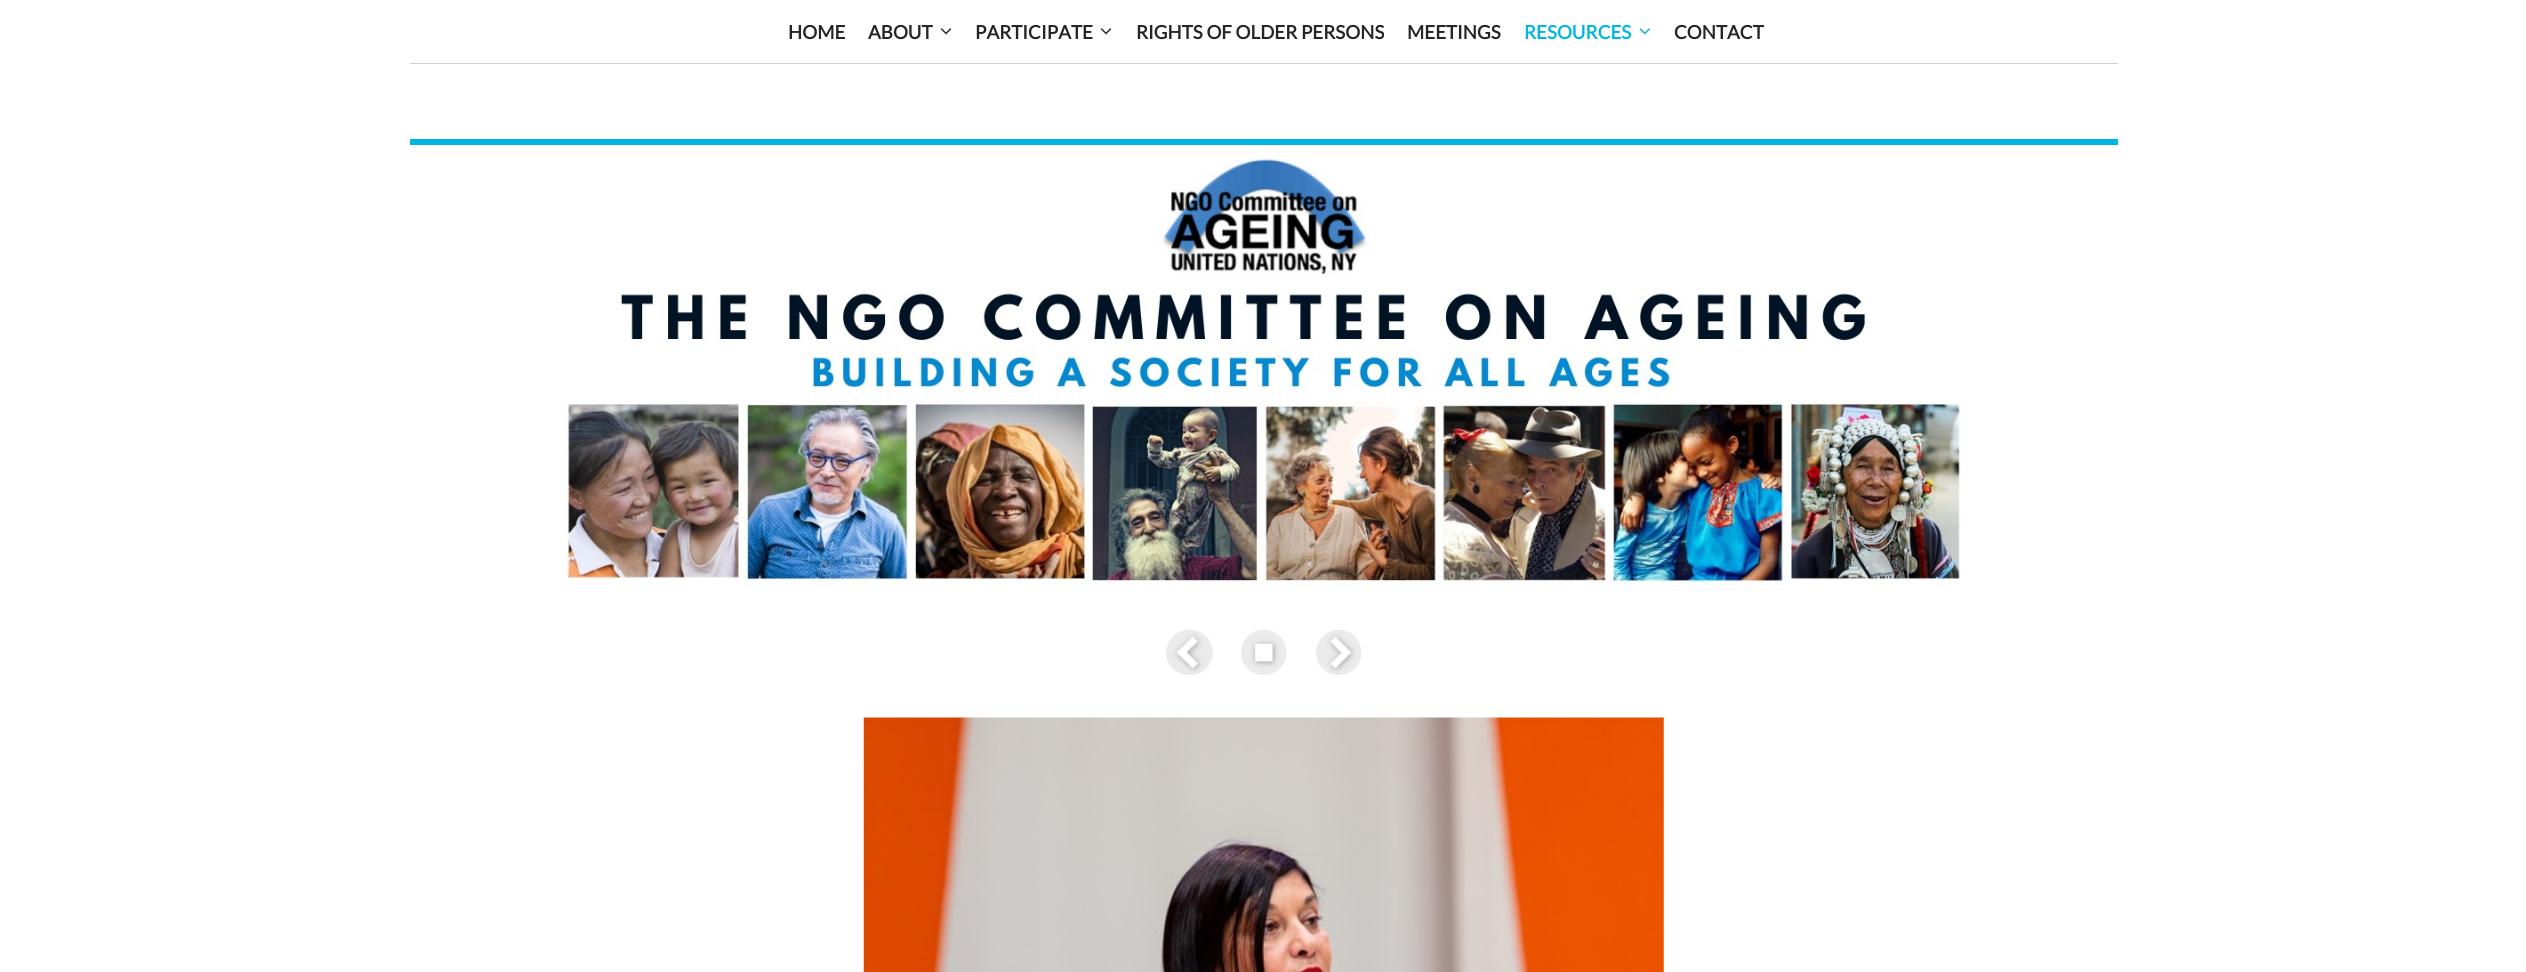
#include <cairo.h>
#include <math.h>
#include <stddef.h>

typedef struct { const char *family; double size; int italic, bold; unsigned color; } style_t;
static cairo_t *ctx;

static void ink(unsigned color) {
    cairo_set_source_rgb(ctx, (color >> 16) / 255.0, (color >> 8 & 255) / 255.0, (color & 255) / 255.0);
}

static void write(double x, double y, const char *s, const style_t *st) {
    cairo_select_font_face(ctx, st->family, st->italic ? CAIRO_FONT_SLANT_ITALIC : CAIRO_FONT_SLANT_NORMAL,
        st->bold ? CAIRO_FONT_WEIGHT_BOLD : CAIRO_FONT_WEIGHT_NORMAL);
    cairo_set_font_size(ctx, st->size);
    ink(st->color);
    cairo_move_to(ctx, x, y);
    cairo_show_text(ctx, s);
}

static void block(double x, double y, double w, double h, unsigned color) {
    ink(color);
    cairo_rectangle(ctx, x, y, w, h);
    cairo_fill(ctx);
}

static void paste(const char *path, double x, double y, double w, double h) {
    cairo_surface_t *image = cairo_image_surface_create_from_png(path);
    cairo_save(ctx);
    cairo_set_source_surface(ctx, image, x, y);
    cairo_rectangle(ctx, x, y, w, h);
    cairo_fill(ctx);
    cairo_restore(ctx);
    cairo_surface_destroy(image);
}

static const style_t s1 = {"Lato", 18.75, 0, 1, 0x252525};
static const style_t s2 = {"Lato", 18.75, 0, 1, 0x00b6e3};

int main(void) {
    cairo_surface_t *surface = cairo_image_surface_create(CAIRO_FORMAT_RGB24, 2526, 972);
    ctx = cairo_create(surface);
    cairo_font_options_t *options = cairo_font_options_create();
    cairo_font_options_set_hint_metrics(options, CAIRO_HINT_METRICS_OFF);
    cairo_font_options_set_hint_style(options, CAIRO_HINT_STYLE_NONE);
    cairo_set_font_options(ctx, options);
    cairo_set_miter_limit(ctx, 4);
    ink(0xffffff);
    cairo_paint(ctx);
    write(788, 39, "HOME", &s1);
    write(868, 39, "ABOUT", &s1);
    paste("pic1.png", 940, 28, 12, 7);
    write(975, 39, "PARTICIPATE", &s1);
    paste("pic1.png", 1100, 28, 12, 7);
    write(1136, 39, "RIGHTS OF OLDER PERSONS", &s1);
    write(1407, 39, "MEETINGS", &s1);
    write(1524, 39, "RESOURCES", &s2);
    paste("pic2.png", 1639, 28, 11, 7);
    write(1674, 39, "CONTACT", &s1);
    block(410, 63, 1708, 1, 0xd0d0d0);
    block(410, 139, 1708, 6, 0x00b6e3);
    paste("pic3.png", 566, 158, 1395, 432);
    paste("pic4.png", 1166, 630, 47, 45);
    paste("pic5.png", 1166, 630, 47, 45);
    paste("pic6.png", 1241, 630, 46, 45);
    paste("pic7.png", 1241, 630, 46, 45);
    paste("pic8.png", 1316, 630, 46, 45);
    paste("pic9.png", 1316, 630, 46, 45);
    paste("pic10.png", 863, 717, 801, 255);
    cairo_surface_write_to_png(surface, "screenshot.png");
    cairo_font_options_destroy(options);
    cairo_destroy(ctx);
    cairo_surface_destroy(surface);
    return 0;
}
